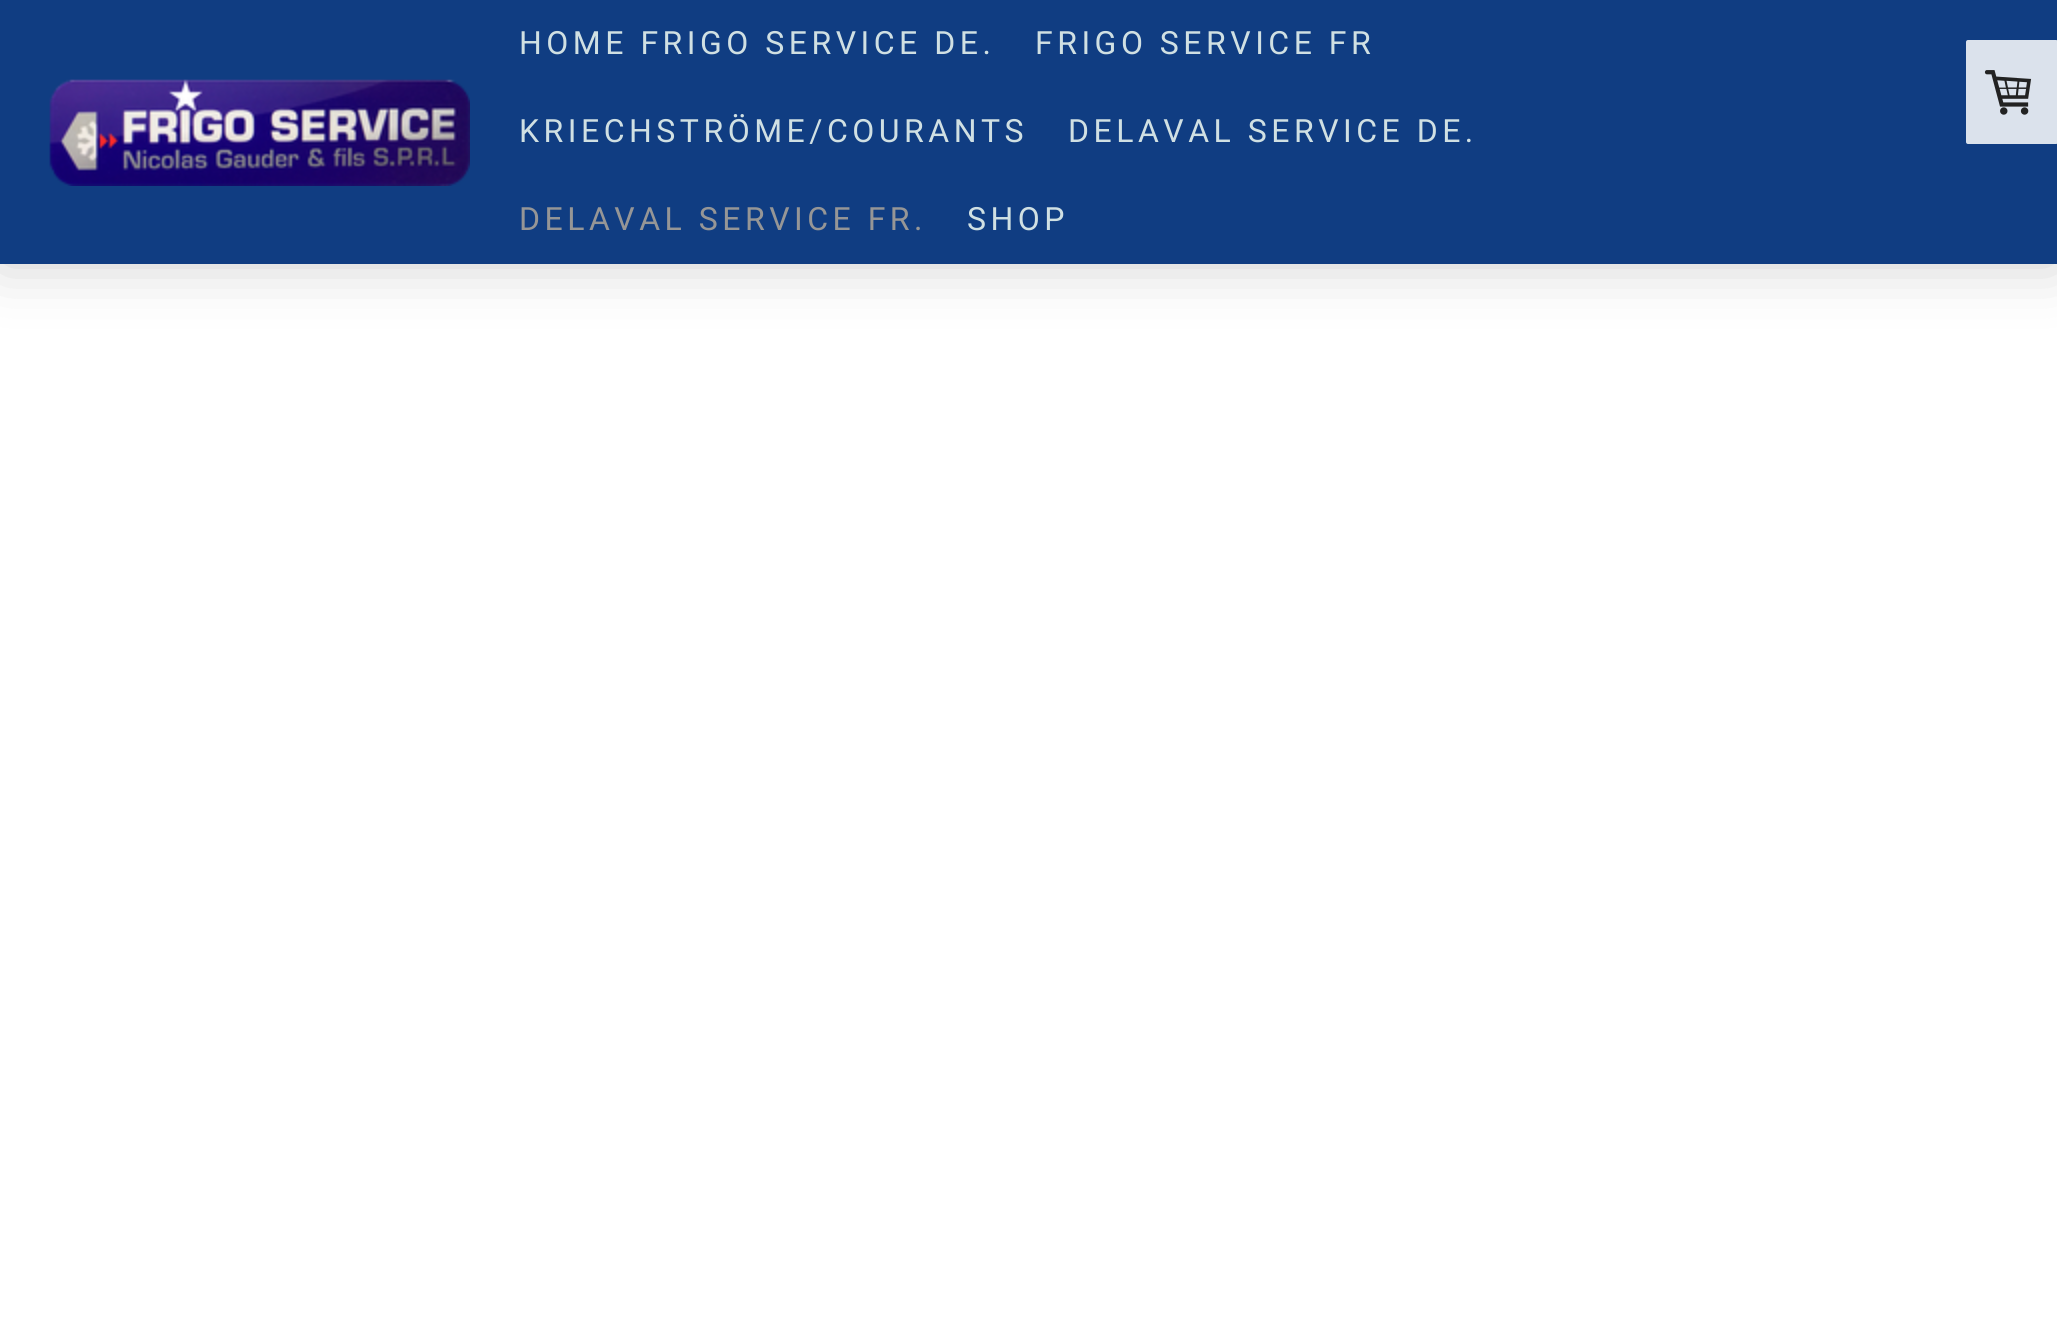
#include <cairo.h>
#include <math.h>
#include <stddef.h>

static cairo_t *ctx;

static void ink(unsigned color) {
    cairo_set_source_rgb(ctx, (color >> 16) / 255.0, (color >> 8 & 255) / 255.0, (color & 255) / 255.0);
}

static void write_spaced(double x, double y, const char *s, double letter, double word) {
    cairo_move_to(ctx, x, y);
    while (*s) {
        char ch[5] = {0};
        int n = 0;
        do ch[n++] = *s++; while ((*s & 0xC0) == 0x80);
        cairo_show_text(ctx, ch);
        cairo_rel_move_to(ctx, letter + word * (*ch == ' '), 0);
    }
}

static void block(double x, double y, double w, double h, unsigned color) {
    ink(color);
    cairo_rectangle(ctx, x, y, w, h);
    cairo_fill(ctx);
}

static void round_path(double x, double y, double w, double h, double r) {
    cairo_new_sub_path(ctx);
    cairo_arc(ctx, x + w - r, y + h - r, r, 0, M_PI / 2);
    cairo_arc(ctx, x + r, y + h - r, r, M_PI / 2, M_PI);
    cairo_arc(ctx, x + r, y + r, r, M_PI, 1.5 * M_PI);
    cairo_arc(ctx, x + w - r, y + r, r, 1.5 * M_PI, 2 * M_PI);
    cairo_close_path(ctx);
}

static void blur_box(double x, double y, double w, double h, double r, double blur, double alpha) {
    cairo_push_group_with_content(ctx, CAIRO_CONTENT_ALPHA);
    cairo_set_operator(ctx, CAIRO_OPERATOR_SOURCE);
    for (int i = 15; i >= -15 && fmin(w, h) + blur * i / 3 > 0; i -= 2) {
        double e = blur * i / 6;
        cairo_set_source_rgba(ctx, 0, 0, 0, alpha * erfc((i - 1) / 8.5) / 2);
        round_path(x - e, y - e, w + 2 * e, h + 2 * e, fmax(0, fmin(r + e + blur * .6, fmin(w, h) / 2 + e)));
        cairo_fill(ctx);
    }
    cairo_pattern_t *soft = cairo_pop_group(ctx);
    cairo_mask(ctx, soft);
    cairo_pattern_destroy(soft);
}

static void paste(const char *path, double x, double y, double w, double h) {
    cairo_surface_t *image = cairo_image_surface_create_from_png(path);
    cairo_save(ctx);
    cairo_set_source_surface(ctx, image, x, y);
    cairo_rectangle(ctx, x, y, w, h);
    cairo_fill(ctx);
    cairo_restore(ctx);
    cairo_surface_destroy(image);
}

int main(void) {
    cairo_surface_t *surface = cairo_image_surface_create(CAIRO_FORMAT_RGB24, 2057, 1341);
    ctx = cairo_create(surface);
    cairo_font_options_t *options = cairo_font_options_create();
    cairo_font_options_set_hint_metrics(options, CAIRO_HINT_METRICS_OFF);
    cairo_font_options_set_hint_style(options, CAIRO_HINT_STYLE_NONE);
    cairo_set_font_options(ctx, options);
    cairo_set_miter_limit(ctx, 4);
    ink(0xffffff);
    cairo_paint(ctx);
    ink(0x000000);
    blur_box(0, 0, 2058, 264, 0, 30, 0.2);
    block(0, 0, 2057, 264, 0x103d82);
    paste("pic1.png", 49, 79, 421, 107);
    cairo_select_font_face(ctx, "Roboto", CAIRO_FONT_SLANT_NORMAL, CAIRO_FONT_WEIGHT_NORMAL);
    cairo_set_font_size(ctx, 32);
    ink(0xd0e0e3);
    write_spaced(519, 54, "HOME FRIGO SERVICE DE.", 4.5, 0);
    write_spaced(1035, 54, "FRIGO SERVICE FR", 4.5, 0);
    write_spaced(519, 142, "KRIECHSTRÖME/COURANTS", 4.5, 0);
    write_spaced(1068, 142, "DELAVAL SERVICE DE.", 4.5, 0);
    ink(0x969696);
    write_spaced(519, 230, "DELAVAL SERVICE FR.", 4.5, 0);
    ink(0xd0e0e3);
    write_spaced(967, 230, "SHOP", 4.5, 0);
    ink(0xdbe2ec);
    round_path(1966, 40, 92, 104, 2);
    cairo_fill(ctx);
    paste("pic2.png", 1984, 70, 48, 45);
    cairo_surface_write_to_png(surface, "screenshot.png");
    cairo_font_options_destroy(options);
    cairo_destroy(ctx);
    cairo_surface_destroy(surface);
    return 0;
}
